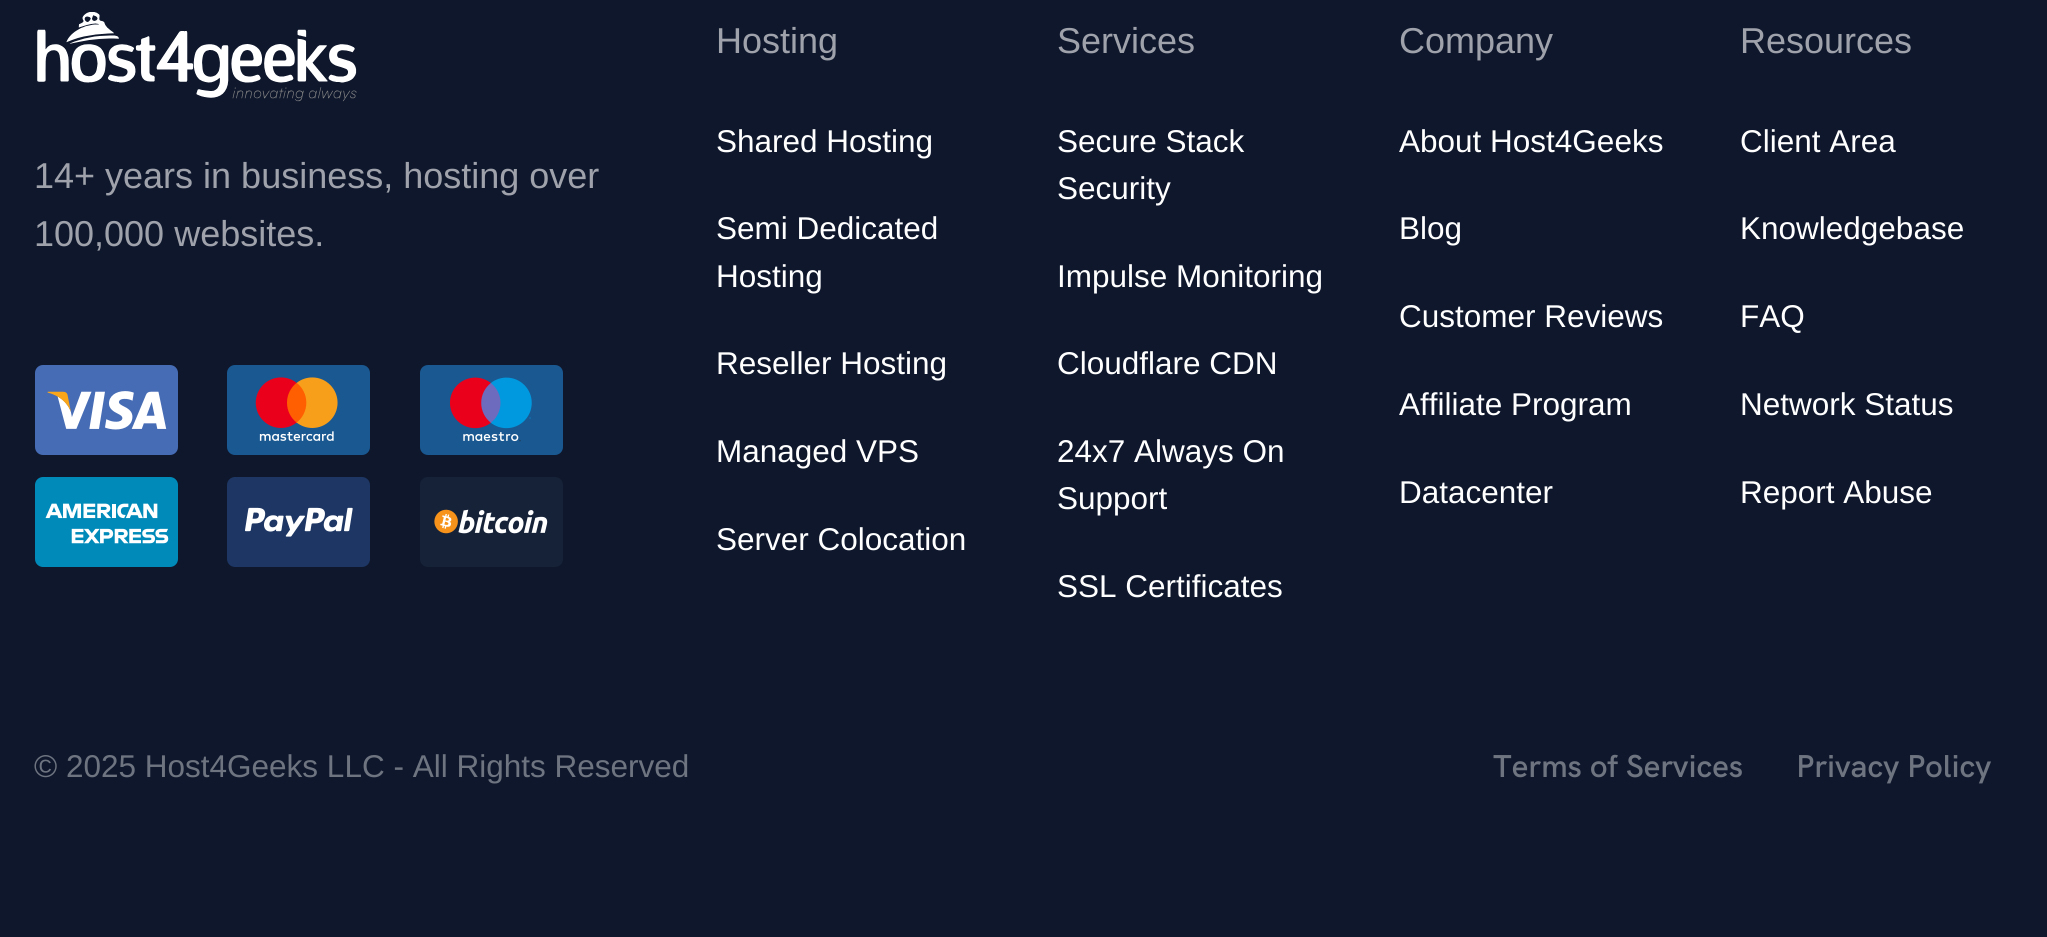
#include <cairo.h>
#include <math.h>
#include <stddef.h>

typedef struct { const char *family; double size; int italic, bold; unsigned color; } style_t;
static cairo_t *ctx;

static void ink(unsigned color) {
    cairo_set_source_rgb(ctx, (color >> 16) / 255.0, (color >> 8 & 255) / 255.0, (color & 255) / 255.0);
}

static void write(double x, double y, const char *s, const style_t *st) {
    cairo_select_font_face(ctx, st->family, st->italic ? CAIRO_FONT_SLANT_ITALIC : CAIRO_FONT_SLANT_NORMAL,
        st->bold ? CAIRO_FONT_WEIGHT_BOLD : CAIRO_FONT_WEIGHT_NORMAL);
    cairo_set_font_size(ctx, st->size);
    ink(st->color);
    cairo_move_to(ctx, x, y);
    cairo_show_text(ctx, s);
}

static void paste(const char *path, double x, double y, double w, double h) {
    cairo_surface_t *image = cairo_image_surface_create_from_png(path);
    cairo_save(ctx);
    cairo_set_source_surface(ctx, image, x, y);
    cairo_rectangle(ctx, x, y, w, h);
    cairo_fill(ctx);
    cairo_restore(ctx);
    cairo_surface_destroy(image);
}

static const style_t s1 = {"Liberation Sans", 36, 0, 0, 0x9fa2ab};
static const style_t s2 = {"Liberation Sans", 31.5, 0, 0, 0xffffff};
static const style_t s3 = {"Liberation Sans", 31.5, 0, 0, 0x6e7480};
static const style_t s4 = {"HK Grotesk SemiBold", 31.5, 0, 0, 0x6e7480};

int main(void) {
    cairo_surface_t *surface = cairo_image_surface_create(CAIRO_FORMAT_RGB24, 2047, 937);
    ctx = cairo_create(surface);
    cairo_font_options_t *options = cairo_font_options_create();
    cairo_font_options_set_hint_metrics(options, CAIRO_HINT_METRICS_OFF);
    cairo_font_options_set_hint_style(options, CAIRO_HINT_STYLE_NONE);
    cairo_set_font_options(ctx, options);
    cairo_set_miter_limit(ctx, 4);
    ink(0x0e172c);
    cairo_paint(ctx);
    paste("pic1.png", 37, 12, 320, 90);
    write(34, 188, "14+ years in business, hosting over", &s1);
    write(34, 246, "100,000 websites.", &s1);
    paste("pic2.png", 35, 365, 143, 90);
    paste("pic3.png", 227, 365, 143, 90);
    paste("pic4.png", 420, 365, 143, 90);
    paste("pic5.png", 35, 477, 143, 90);
    paste("pic6.png", 227, 477, 143, 90);
    paste("pic7.png", 420, 477, 143, 90);
    write(716, 53, "Hosting", &s1);
    write(716, 152, "Shared Hosting", &s2);
    write(716, 239, "Semi Dedicated", &s2);
    write(716, 287, "Hosting", &s2);
    write(716, 374, "Reseller Hosting", &s2);
    write(716, 462, "Managed VPS", &s2);
    write(716, 550, "Server Colocation", &s2);
    write(1057, 53, "Services", &s1);
    write(1057, 152, "Secure Stack", &s2);
    write(1057, 199, "Security", &s2);
    write(1057, 287, "Impulse Monitoring", &s2);
    write(1057, 374, "Cloudflare CDN", &s2);
    write(1057, 462, "24x7 Always On", &s2);
    write(1057, 509, "Support", &s2);
    write(1057, 597, "SSL Certificates", &s2);
    write(1399, 53, "Company", &s1);
    write(1399, 152, "About Host4Geeks", &s2);
    write(1399, 239, "Blog", &s2);
    write(1399, 327, "Customer Reviews", &s2);
    write(1399, 415, "Affiliate Program", &s2);
    write(1399, 503, "Datacenter", &s2);
    write(1740, 53, "Resources", &s1);
    write(1740, 152, "Client Area", &s2);
    write(1740, 239, "Knowledgebase", &s2);
    write(1740, 327, "FAQ", &s2);
    write(1740, 415, "Network Status", &s2);
    write(1740, 503, "Report Abuse", &s2);
    write(34, 777, "© 2025 Host4Geeks LLC - All Rights Reserved", &s3);
    write(1493, 777, "Terms of Services", &s4);
    write(1796, 777, "Privacy Policy", &s4);
    cairo_surface_write_to_png(surface, "screenshot.png");
    cairo_font_options_destroy(options);
    cairo_destroy(ctx);
    cairo_surface_destroy(surface);
    return 0;
}
